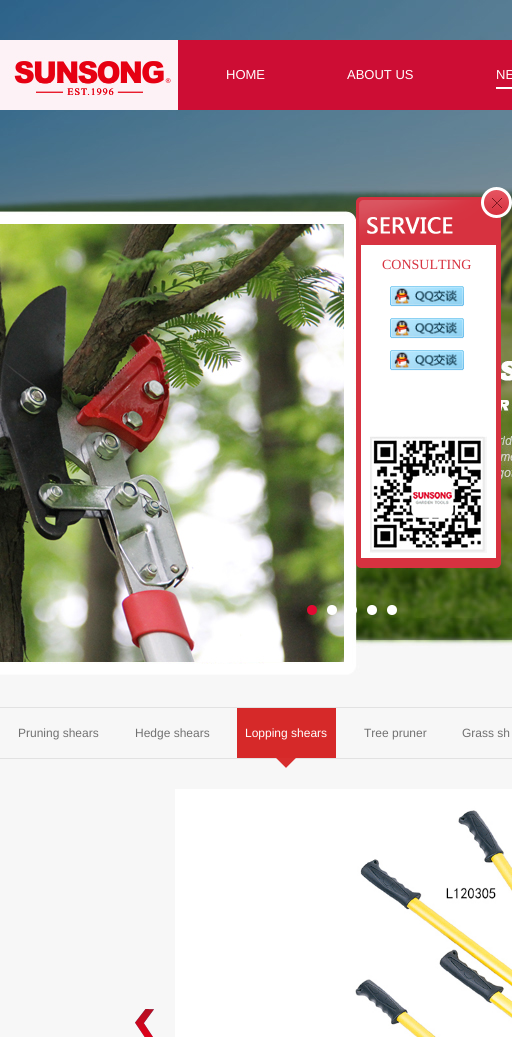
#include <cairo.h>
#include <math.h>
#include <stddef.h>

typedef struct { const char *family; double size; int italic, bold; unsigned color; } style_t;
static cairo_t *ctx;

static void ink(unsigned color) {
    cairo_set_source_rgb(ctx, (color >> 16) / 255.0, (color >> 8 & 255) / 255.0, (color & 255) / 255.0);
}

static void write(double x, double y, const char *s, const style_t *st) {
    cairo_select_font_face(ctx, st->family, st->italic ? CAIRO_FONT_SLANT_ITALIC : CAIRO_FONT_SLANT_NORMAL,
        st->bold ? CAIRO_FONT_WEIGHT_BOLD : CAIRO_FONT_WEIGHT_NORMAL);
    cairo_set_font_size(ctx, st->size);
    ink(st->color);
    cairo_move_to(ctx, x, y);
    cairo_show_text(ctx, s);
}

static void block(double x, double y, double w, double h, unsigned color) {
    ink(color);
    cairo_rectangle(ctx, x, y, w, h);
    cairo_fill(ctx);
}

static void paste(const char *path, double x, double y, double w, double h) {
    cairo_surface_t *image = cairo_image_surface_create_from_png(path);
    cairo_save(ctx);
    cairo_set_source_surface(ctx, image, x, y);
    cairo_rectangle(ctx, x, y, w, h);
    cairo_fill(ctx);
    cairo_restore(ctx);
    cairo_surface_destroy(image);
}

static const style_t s1 = {"Liberation Sans", 13, 0, 0, 0xffffff};
static const style_t s2 = {"Liberation Serif", 14, 0, 0, 0xd73240};
static const style_t s3 = {"Liberation Sans", 12, 0, 0, 0x717171};
static const style_t s4 = {"Liberation Sans", 12, 0, 0, 0xffffff};

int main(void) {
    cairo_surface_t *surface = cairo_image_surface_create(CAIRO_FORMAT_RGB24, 512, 1037);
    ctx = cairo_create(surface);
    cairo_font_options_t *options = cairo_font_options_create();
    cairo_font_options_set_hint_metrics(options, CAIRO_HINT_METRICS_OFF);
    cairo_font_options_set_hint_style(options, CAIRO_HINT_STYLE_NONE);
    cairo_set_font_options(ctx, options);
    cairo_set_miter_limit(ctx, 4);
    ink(0xf7f7f7);
    cairo_paint(ctx);
    paste("pic1.png", 0, 0, 512, 675);
    ink(0xe10a32);
    cairo_arc(ctx, 312, 610, 5, 0, 2 * M_PI);
    cairo_fill(ctx);
    ink(0xffffff);
    cairo_arc(ctx, 332, 610, 5, 0, 2 * M_PI);
    cairo_fill(ctx);
    cairo_arc(ctx, 352, 610, 5, 0, 2 * M_PI);
    cairo_fill(ctx);
    cairo_arc(ctx, 372, 610, 5, 0, 2 * M_PI);
    cairo_fill(ctx);
    cairo_arc(ctx, 392, 610, 5, 0, 2 * M_PI);
    cairo_fill(ctx);
    paste("pic2.png", 0, 40, 178, 70);
    block(178, 40, 334, 70, 0xcd0d34);
    write(226, 79, "HOME", &s1);
    write(347, 79, "ABOUT US", &s1);
    write(496, 79, "NE", &s1);
    block(496, 87, 16, 2, 0xffffff);
    paste("pic3.png", 356, 558, 145, 10);
    paste("pic4.png", 356, 187, 156, 58);
    paste("pic5.png", 356, 245, 145, 313);
    write(382, 269, "CONSULTING", &s2);
    paste("pic6.png", 390, 286, 74, 21);
    paste("pic6.png", 390, 318, 74, 21);
    paste("pic6.png", 390, 350, 74, 21);
    paste("pic7.png", 370, 436, 117, 117);
    block(0, 707, 512, 1, 0xe2e2e2);
    block(0, 758, 512, 1, 0xe2e2e2);
    write(18, 737, "Pruning shears", &s3);
    write(135, 737, "Hedge shears", &s3);
    block(237, 708, 99, 50, 0xd62929);
    write(245, 737, "Lopping shears", &s4);
    paste("pic8.png", 276, 758, 20, 10);
    write(364, 737, "Tree pruner", &s3);
    write(462, 737, "Grass sh", &s3);
    paste("pic9.png", 135, 1009, 19, 28);
    paste("pic10.png", 175, 789, 337, 248);
    cairo_surface_write_to_png(surface, "screenshot.png");
    cairo_font_options_destroy(options);
    cairo_destroy(ctx);
    cairo_surface_destroy(surface);
    return 0;
}
